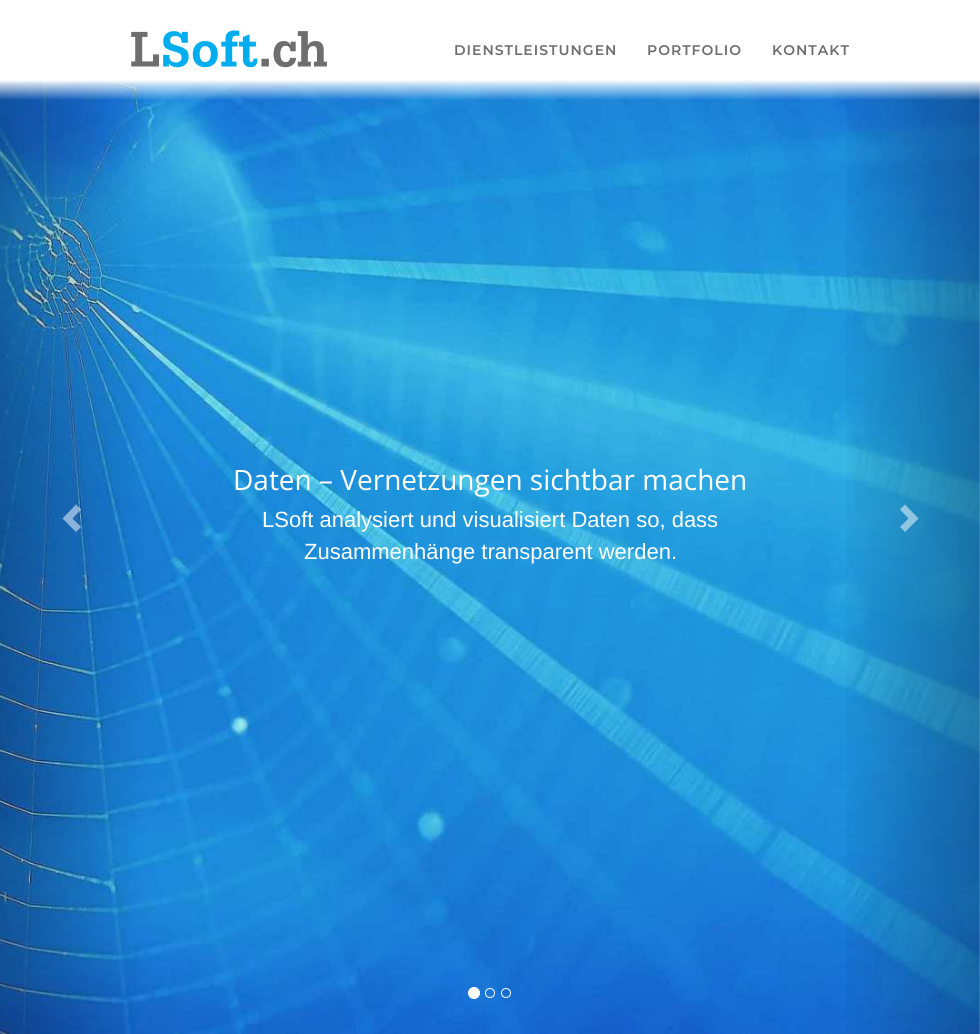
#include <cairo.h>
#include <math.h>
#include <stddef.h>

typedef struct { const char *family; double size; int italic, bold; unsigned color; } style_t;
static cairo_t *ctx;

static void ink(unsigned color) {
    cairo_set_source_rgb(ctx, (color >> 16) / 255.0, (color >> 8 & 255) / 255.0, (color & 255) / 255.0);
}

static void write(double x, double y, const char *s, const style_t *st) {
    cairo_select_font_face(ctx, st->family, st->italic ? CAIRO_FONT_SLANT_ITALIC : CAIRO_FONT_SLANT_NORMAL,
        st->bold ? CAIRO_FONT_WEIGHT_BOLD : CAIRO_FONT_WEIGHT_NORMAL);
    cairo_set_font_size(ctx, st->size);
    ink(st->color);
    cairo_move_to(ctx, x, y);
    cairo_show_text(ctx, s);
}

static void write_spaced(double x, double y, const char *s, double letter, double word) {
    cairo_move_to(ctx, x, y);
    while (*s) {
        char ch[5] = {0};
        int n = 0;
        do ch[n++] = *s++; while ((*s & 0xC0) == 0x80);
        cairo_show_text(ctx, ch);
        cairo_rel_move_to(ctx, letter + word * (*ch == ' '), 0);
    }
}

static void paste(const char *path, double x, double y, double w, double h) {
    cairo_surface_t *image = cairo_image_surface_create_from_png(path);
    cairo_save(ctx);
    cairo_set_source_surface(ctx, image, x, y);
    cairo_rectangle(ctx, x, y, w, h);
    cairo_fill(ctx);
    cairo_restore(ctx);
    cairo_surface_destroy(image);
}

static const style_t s1 = {"Open Sans", 28, 0, 0, 0xffffff};
static const style_t s2 = {"Liberation Sans", 22, 0, 0, 0xffffff};

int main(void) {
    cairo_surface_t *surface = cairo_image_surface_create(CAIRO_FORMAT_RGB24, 980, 1034);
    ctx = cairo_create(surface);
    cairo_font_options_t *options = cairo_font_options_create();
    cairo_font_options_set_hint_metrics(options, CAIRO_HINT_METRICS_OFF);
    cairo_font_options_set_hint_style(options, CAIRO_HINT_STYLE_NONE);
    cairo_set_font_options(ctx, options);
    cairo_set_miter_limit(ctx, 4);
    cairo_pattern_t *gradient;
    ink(0xffffff);
    cairo_paint(ctx);
    paste("pic2.png", 0, 80, 980, 954);
    gradient = cairo_pattern_create_linear(833, 517, 980, 517);
    cairo_pattern_add_color_stop_rgba(gradient, 0, 0, 0, 0, 0);
    cairo_pattern_add_color_stop_rgba(gradient, 1, 0, 0, 0, 0.25);
    cairo_set_source(ctx, gradient);
    cairo_pattern_destroy(gradient);
    cairo_rectangle(ctx, 846, 80, 134, 954);
    cairo_fill(ctx);
    gradient = cairo_pattern_create_linear(490, 100, 490, 0);
    cairo_pattern_add_color_stop_rgba(gradient, 0, 1, 1, 1, 0);
    cairo_pattern_add_color_stop_rgba(gradient, 0.15, 1, 1, 1, 0.7);
    cairo_pattern_add_color_stop_rgba(gradient, 0.2, 1, 1, 1, 1);
    cairo_pattern_add_color_stop_rgba(gradient, 1, 1, 1, 1, 1);
    cairo_set_source(ctx, gradient);
    cairo_pattern_destroy(gradient);
    cairo_rectangle(ctx, 0, 80, 980, 20);
    cairo_fill(ctx);
    paste("pic1.png", 131, 30, 196, 38);
    cairo_select_font_face(ctx, "Montserrat SemiBold", CAIRO_FONT_SLANT_NORMAL, CAIRO_FONT_WEIGHT_NORMAL);
    cairo_set_font_size(ctx, 14);
    ink(0x6e6e70);
    write_spaced(454, 55, "DIENSTLEISTUNGEN", 1, 0);
    write_spaced(647, 55, "PORTFOLIO", 1, 0);
    write_spaced(772, 55, "KONTAKT", 1, 0);
    cairo_set_source_rgba(ctx, 1, 1, 1, 0.5);
    cairo_new_path(ctx);
    cairo_move_to(ctx, 81, 509.5);
    cairo_line_to(ctx, 72.5, 518.5);
    cairo_line_to(ctx, 81, 527);
    cairo_line_to(ctx, 76, 532);
    cairo_line_to(ctx, 62.5, 518.5);
    cairo_line_to(ctx, 76, 504.5);
    cairo_close_path(ctx);
    cairo_fill(ctx);
    write(233, 490, "Daten – Vernetzungen sichtbar machen", &s1);
    write(262, 527, "LSoft analysiert und visualisiert Daten so, dass", &s2);
    write(304, 559, "Zusammenhänge transparent werden.", &s2);
    cairo_set_source_rgba(ctx, 1, 1, 1, 0.5);
    cairo_new_path(ctx);
    cairo_move_to(ctx, 918.5, 518.5);
    cairo_line_to(ctx, 905, 532);
    cairo_line_to(ctx, 900, 527);
    cairo_line_to(ctx, 908.5, 518.5);
    cairo_line_to(ctx, 900, 509.5);
    cairo_line_to(ctx, 905, 504.5);
    cairo_close_path(ctx);
    cairo_fill(ctx);
    ink(0xffffff);
    cairo_arc(ctx, 474, 993, 5.5, 0, 2 * M_PI);
    cairo_fill_preserve(ctx);
    cairo_set_line_width(ctx, 1);
    cairo_stroke(ctx);
    cairo_arc(ctx, 490, 993, 4.5, 0, 2 * M_PI);
    cairo_stroke(ctx);
    cairo_arc(ctx, 506, 993, 4.5, 0, 2 * M_PI);
    cairo_stroke(ctx);
    cairo_surface_write_to_png(surface, "screenshot.png");
    cairo_font_options_destroy(options);
    cairo_destroy(ctx);
    cairo_surface_destroy(surface);
    return 0;
}
